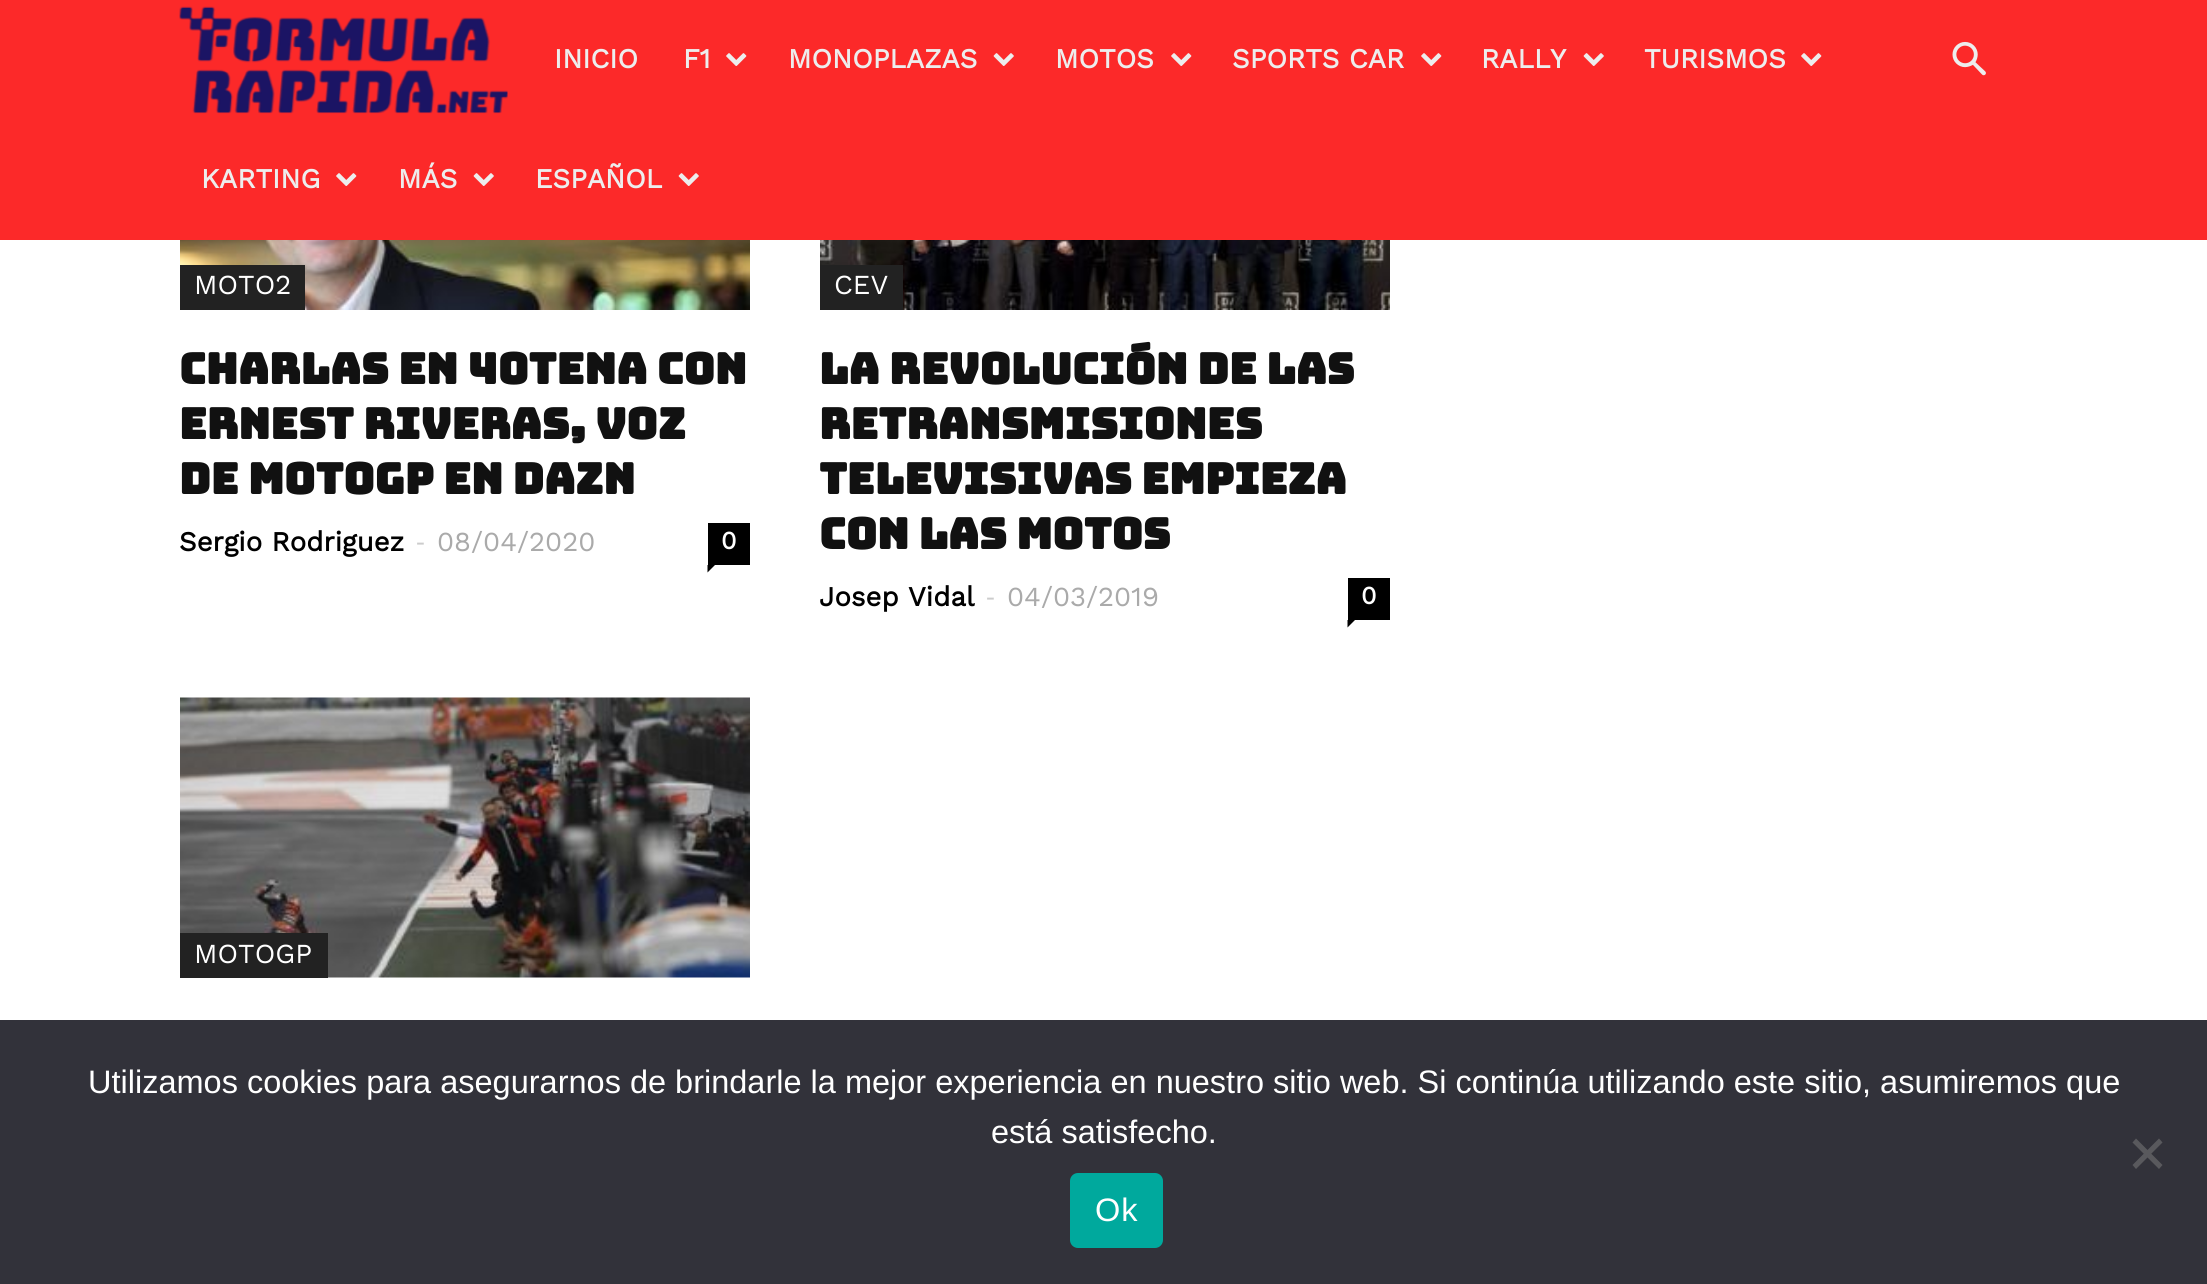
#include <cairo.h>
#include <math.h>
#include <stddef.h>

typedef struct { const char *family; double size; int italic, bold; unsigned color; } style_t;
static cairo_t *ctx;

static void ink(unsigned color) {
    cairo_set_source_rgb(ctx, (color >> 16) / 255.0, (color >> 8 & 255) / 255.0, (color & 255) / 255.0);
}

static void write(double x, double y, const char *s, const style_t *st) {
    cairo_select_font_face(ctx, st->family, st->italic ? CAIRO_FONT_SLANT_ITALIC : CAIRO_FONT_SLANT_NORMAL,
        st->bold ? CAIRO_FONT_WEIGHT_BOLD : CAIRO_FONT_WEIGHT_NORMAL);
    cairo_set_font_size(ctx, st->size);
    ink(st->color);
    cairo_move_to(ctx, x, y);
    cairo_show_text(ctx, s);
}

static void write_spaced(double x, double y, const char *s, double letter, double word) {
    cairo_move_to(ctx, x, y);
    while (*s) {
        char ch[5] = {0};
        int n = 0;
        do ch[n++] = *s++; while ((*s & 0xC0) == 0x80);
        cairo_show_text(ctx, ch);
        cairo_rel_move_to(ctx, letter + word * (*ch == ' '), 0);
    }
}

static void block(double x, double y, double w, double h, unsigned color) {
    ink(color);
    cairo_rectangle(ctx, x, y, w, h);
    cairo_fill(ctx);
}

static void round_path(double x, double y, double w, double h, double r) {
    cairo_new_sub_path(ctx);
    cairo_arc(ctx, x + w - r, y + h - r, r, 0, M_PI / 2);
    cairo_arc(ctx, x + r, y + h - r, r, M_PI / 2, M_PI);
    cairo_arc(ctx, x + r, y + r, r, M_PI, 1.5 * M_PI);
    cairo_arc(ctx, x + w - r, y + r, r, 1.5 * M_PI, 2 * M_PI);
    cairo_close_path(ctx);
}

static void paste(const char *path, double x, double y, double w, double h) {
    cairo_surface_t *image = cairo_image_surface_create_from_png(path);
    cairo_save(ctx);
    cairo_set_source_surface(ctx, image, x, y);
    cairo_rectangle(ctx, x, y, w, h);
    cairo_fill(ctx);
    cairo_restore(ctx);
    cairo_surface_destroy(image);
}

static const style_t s1 = {"Work Sans", 27.5, 0, 1, 0xededed};
static const style_t s2 = {"Work Sans", 27.5, 0, 0, 0xffffff};
static const style_t s3 = {"Bungee", 42.5, 0, 1, 0x111111};
static const style_t s4 = {"Work Sans", 27.5, 0, 1, 0x000000};
static const style_t s5 = {"Open Sans", 27.5, 0, 0, 0xcccccc};
static const style_t s6 = {"Work Sans", 27.5, 0, 0, 0xaaaaaa};
static const style_t s7 = {"Work Sans", 25, 0, 1, 0xffffff};
static const style_t s8 = {"Liberation Sans", 32.5, 0, 0, 0xffffff};

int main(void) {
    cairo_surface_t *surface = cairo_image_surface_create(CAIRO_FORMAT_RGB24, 2207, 1284);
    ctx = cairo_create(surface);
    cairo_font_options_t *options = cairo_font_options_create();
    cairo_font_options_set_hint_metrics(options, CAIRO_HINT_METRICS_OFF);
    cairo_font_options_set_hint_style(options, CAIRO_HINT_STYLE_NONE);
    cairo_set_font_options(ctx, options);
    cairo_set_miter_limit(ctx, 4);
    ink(0xffffff);
    cairo_paint(ctx);
    block(0, 0, 2207, 240, 0xfc2929);
    paste("pic1.png", 179, 6, 329, 108);
    write(554, 68, "INICIO", &s1);
    write(683, 68, "F1", &s1);
    paste("pic2.png", 726, 53, 21, 13);
    write(788, 68, "MONOPLAZAS", &s1);
    paste("pic3.png", 993, 53, 21, 13);
    write(1055, 68, "MOTOS", &s1);
    paste("pic2.png", 1171, 53, 21, 13);
    write(1232, 68, "SPORTS CAR", &s1);
    paste("pic2.png", 1421, 53, 21, 13);
    write(1481, 68, "RALLY", &s1);
    paste("pic3.png", 1583, 53, 21, 13);
    write(1644, 68, "TURISMOS", &s1);
    paste("pic2.png", 1801, 53, 21, 13);
    write(201, 188, "KARTING", &s1);
    paste("pic2.png", 336, 173, 21, 13);
    write(398, 188, "MÁS", &s1);
    paste("pic3.png", 473, 173, 21, 13);
    write(535, 188, "ESPAÑOL", &s1);
    paste("pic3.png", 678, 173, 21, 13);
    paste("pic4.png", 1952, 41, 34, 35);
    paste("pic5.png", 180, 240, 570, 70);
    block(180, 265, 125, 45, 0x222222);
    write(194, 294, "MOTO2", &s2);
    write(179, 384, "CHARLAS EN 40TENA CON", &s3);
    write(179, 439, "ERNEST RIVERAS, VOZ", &s3);
    write(179, 494, "DE MOTOGP EN DAZN", &s3);
    write(179, 551, "Sergio Rodriguez", &s4);
    write(416, 551, "-", &s5);
    write(437, 551, "08/04/2020", &s6);
    block(708, 523, 42, 42, 0x000000);
    write(721, 549, "0", &s7);
    ink(0x000000);
    cairo_new_path(ctx);
    cairo_move_to(ctx, 707.5, 565);
    cairo_line_to(ctx, 715, 565);
    cairo_line_to(ctx, 707.5, 572.5);
    cairo_close_path(ctx);
    cairo_fill(ctx);
    paste("pic6.png", 820, 240, 570, 70);
    block(820, 265, 83, 45, 0x222222);
    write(834, 294, "CEV", &s2);
    write(819, 384, "LA REVOLUCIÓN DE LAS", &s3);
    write(819, 439, "RETRANSMISIONES", &s3);
    write(819, 494, "TELEVISIVAS EMPIEZA", &s3);
    write(819, 549, "CON LAS MOTOS", &s3);
    write(819, 606, "Josep Vidal", &s4);
    write(986, 606, "-", &s5);
    write(1007, 606, "04/03/2019", &s6);
    block(1348, 578, 42, 42, 0x000000);
    write(1361, 604, "0", &s7);
    ink(0x000000);
    cairo_new_path(ctx);
    cairo_move_to(ctx, 1347.5, 620);
    cairo_line_to(ctx, 1355, 620);
    cairo_line_to(ctx, 1347.5, 627.5);
    cairo_close_path(ctx);
    cairo_fill(ctx);
    paste("pic7.png", 180, 697, 570, 281);
    block(180, 933, 148, 45, 0x222222);
    write(194, 963, "MOTOGP", &s2);
    block(0, 1020, 2207, 264, 0x32323a);
    write(88, 1093, "Utilizamos cookies para asegurarnos de brindarle la mejor experiencia en nuestro sitio web. Si continúa utilizando este sitio, asumiremos que", &s8);
    write(991, 1143, "está satisfecho.", &s8);
    ink(0x59595d);
    cairo_new_path(ctx);
    cairo_move_to(ctx, 2159, 1138.5);
    cairo_line_to(ctx, 2162.5, 1142.5);
    cairo_line_to(ctx, 2136, 1169);
    cairo_line_to(ctx, 2132.5, 1165);
    cairo_close_path(ctx);
    cairo_fill(ctx);
    cairo_new_path(ctx);
    cairo_move_to(ctx, 2132.5, 1142.5);
    cairo_line_to(ctx, 2136, 1138.5);
    cairo_line_to(ctx, 2162.5, 1165);
    cairo_line_to(ctx, 2159, 1169);
    cairo_close_path(ctx);
    cairo_fill(ctx);
    ink(0x00a99d);
    round_path(1070, 1173, 93, 75, 8);
    cairo_fill(ctx);
    ink(0xffffff);
    write_spaced(1095, 1221, "Ok", 1, 0);
    cairo_surface_write_to_png(surface, "screenshot.png");
    cairo_font_options_destroy(options);
    cairo_destroy(ctx);
    cairo_surface_destroy(surface);
    return 0;
}
